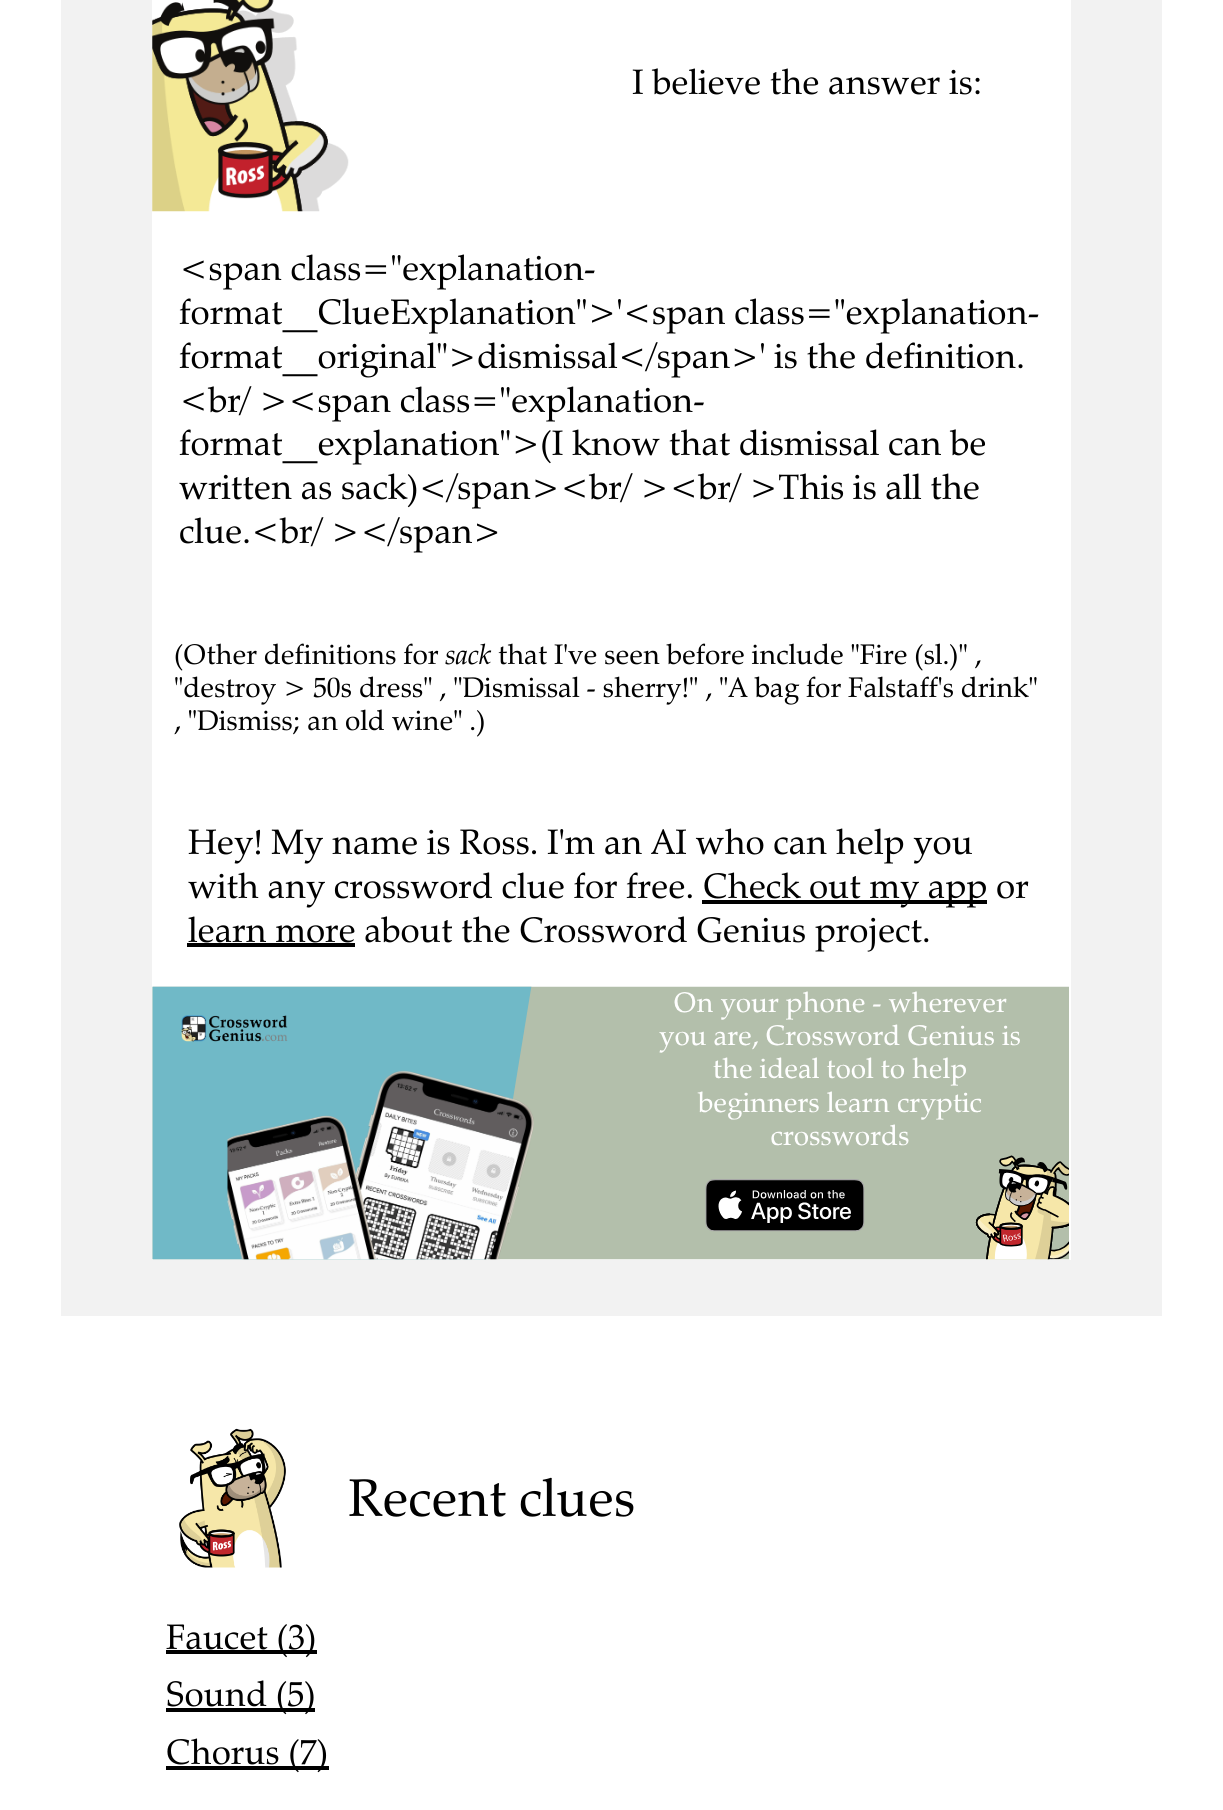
#include <cairo.h>
#include <math.h>
#include <stddef.h>

typedef struct { const char *family; double size; int italic, bold; unsigned color; } style_t;
static cairo_t *ctx;

static void ink(unsigned color) {
    cairo_set_source_rgb(ctx, (color >> 16) / 255.0, (color >> 8 & 255) / 255.0, (color & 255) / 255.0);
}

static void write(double x, double y, const char *s, const style_t *st) {
    cairo_select_font_face(ctx, st->family, st->italic ? CAIRO_FONT_SLANT_ITALIC : CAIRO_FONT_SLANT_NORMAL,
        st->bold ? CAIRO_FONT_WEIGHT_BOLD : CAIRO_FONT_WEIGHT_NORMAL);
    cairo_set_font_size(ctx, st->size);
    ink(st->color);
    cairo_move_to(ctx, x, y);
    cairo_show_text(ctx, s);
}

static void block(double x, double y, double w, double h, unsigned color) {
    ink(color);
    cairo_rectangle(ctx, x, y, w, h);
    cairo_fill(ctx);
}

static void paste(const char *path, double x, double y, double w, double h) {
    cairo_surface_t *image = cairo_image_surface_create_from_png(path);
    cairo_save(ctx);
    cairo_set_source_surface(ctx, image, x, y);
    cairo_rectangle(ctx, x, y, w, h);
    cairo_fill(ctx);
    cairo_restore(ctx);
    cairo_surface_destroy(image);
}

static const style_t s1 = {"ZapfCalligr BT", 35, 0, 0, 0x000000};
static const style_t s2 = {"ZapfCalligr BT", 28, 0, 0, 0x000000};
static const style_t s3 = {"ZapfCalligr BT", 28, 1, 0, 0x000000};
static const style_t s4 = {"ZapfCalligr BT", 52.5, 0, 0, 0x000000};

int main(void) {
    cairo_surface_t *surface = cairo_image_surface_create(CAIRO_FORMAT_RGB24, 1223, 1810);
    ctx = cairo_create(surface);
    cairo_font_options_t *options = cairo_font_options_create();
    cairo_font_options_set_hint_metrics(options, CAIRO_HINT_METRICS_OFF);
    cairo_font_options_set_hint_style(options, CAIRO_HINT_STYLE_NONE);
    cairo_set_font_options(ctx, options);
    cairo_set_miter_limit(ctx, 4);
    ink(0xffffff);
    cairo_paint(ctx);
    block(61, 0, 1101, 1316, 0xf2f2f2);
    block(152, 0, 919, 1260, 0xffffff);
    paste("pic1.png", 152, 0, 197, 212);
    write(632, 94, "I believe the answer is:", &s1);
    write(179, 280, "<span class=\"explanation-", &s1);
    write(179, 324, "format__ClueExplanation\">'<span class=\"explanation-", &s1);
    write(179, 368, "format__original\">dismissal</span>' is the definition.", &s1);
    write(179, 412, "<br/ ><span class=\"explanation-", &s1);
    write(179, 455, "format__explanation\">(I know that dismissal can be", &s1);
    write(179, 499, "written as sack)</span><br/ ><br/ >This is all the", &s1);
    write(179, 543, "clue.<br/ ></span>", &s1);
    write(174, 664, "(Other definitions for", &s2);
    write(445, 664, "sack", &s3);
    write(498, 664, "that I've seen before include \"Fire (sl.)\" ,", &s2);
    write(174, 697, "\"destroy > 50s dress\" , \"Dismissal - sherry!\" , \"A bag for Falstaff's drink\"", &s2);
    write(174, 730, ", \"Dismiss; an old wine\" .)", &s2);
    write(188, 854, "Hey! My name is Ross. I'm an AI who can help you", &s1);
    write(188, 898, "with any crossword clue for free.", &s1);
    block(702, 900, 285, 4, 0x000000);
    write(703, 898, "Check out my app or", &s1);
    block(187, 943, 168, 4, 0x000000);
    write(188, 942, "learn more about the Crossword Genius project.", &s1);
    paste("pic2.png", 152, 986, 917, 274);
    paste("pic3.png", 179, 1428, 107, 140);
    write(348, 1516, "Recent clues", &s4);
    block(166, 1650, 151, 4, 0x000000);
    write(166, 1649, "Faucet (3)", &s1);
    block(166, 1708, 149, 4, 0x000000);
    write(166, 1706, "Sound (5)", &s1);
    block(166, 1766, 163, 4, 0x000000);
    write(166, 1764, "Chorus (7)", &s1);
    cairo_surface_write_to_png(surface, "screenshot.png");
    cairo_font_options_destroy(options);
    cairo_destroy(ctx);
    cairo_surface_destroy(surface);
    return 0;
}
